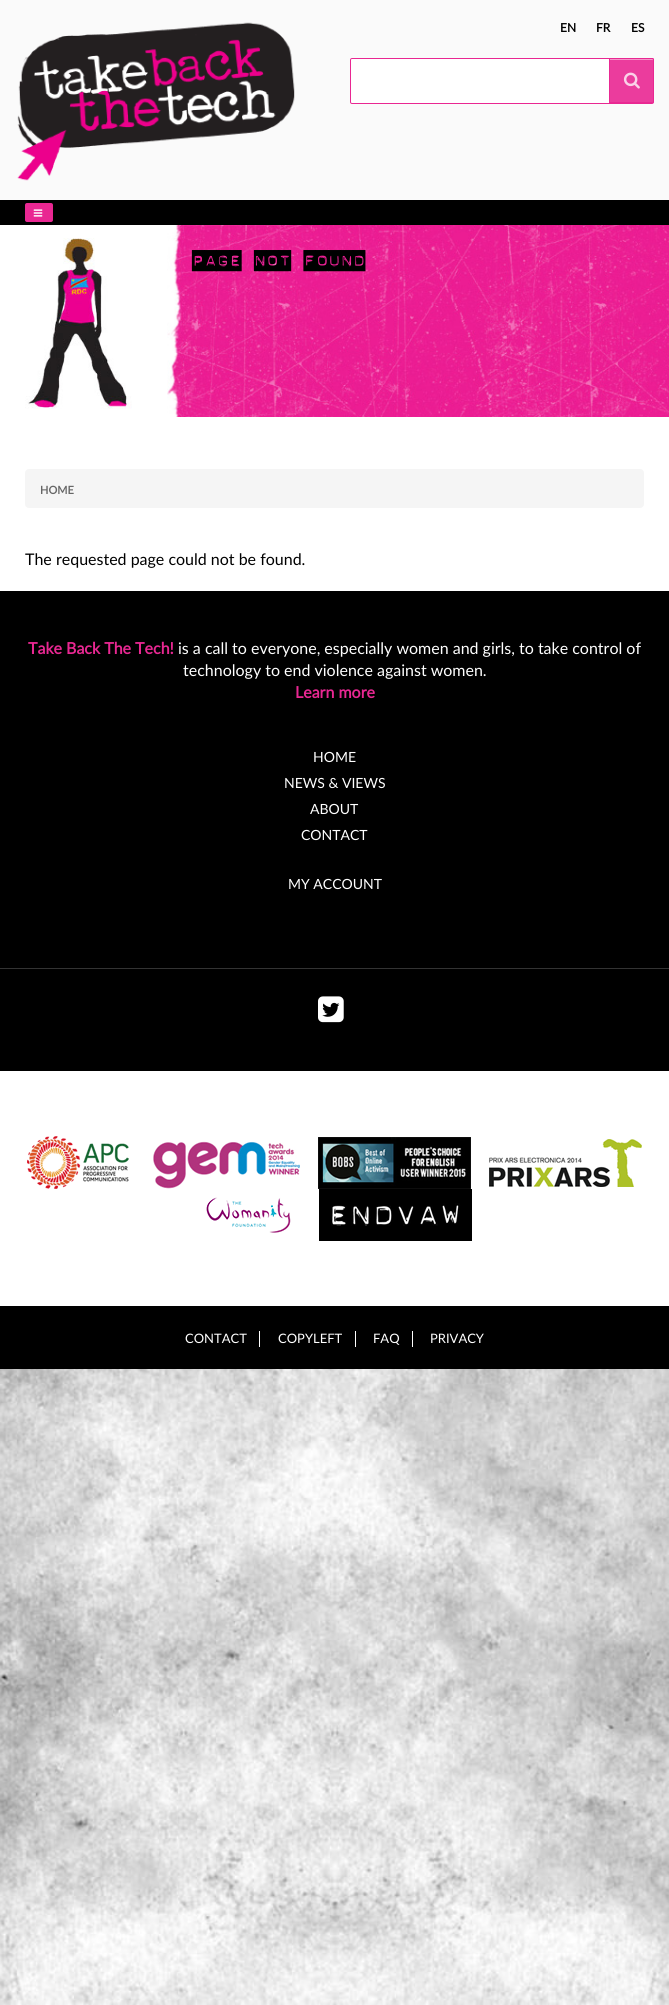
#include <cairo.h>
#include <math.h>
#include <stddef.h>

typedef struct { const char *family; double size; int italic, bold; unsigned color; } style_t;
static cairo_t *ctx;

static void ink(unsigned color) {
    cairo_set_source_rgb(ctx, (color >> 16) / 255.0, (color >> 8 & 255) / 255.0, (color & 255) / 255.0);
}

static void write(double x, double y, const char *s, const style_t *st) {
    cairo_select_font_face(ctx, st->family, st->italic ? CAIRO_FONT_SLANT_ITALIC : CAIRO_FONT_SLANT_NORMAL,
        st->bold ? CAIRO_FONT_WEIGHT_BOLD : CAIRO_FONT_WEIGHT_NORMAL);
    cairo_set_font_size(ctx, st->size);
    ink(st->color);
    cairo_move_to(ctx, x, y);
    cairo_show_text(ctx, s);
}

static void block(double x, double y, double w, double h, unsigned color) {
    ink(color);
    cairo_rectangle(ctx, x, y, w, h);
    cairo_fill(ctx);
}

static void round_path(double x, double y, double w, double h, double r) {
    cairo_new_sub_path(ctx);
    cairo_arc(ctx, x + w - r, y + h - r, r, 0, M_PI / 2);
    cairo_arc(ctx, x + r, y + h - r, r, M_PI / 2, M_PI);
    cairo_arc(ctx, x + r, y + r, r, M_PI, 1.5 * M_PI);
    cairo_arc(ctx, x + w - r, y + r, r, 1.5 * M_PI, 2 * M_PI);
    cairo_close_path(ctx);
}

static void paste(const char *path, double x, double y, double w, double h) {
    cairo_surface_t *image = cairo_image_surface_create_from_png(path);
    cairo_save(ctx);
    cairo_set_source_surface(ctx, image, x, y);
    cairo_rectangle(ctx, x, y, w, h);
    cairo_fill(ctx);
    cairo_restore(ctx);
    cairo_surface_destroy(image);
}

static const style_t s1 = {"Lato", 12, 0, 1, 0x000000};
static const style_t s2 = {"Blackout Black", 21, 0, 0, 0x000000};
static const style_t s3 = {"Lato", 11, 0, 1, 0x666666};
static const style_t s4 = {"Lato", 16, 0, 0, 0x000000};
static const style_t s5 = {"Lato", 16, 0, 1, 0xe92792};
static const style_t s6 = {"Lato", 16, 0, 0, 0xffffff};
static const style_t s7 = {"Lato", 14, 0, 0, 0xffffff};
static const style_t s8 = {"Lato", 13, 0, 0, 0xffffff};

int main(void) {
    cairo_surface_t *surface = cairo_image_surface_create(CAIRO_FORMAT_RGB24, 669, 2005);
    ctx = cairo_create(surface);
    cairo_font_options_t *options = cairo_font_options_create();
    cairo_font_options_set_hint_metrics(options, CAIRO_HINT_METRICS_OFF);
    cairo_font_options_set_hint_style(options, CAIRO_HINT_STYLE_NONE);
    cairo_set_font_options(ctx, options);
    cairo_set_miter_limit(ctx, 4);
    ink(0xffffff);
    cairo_paint(ctx);
    paste("pic1.png", 0, 1369, 669, 636);
    block(0, 0, 669, 200, 0xfafafa);
    paste("pic2.png", 17, 22, 278, 159);
    write(560, 32, "EN", &s1);
    write(596, 32, "FR", &s1);
    write(631, 32, "ES", &s1);
    ink(0xffffff);
    round_path(350.5, 58.5, 303, 45, 1.5);
    cairo_fill_preserve(ctx);
    ink(0xe92792);
    cairo_set_line_width(ctx, 1);
    cairo_stroke(ctx);
    cairo_set_source_rgba(ctx, 0.914, 0.153, 0.573, 0.9);
    cairo_new_path(ctx);
    cairo_move_to(ctx, 609, 58);
    cairo_line_to(ctx, 652, 58);
    cairo_curve_to(ctx, 653, 58, 654, 59, 654, 60);
    cairo_line_to(ctx, 654, 101);
    cairo_curve_to(ctx, 654, 102, 653, 103, 652, 103);
    cairo_line_to(ctx, 609, 103);
    cairo_close_path(ctx);
    cairo_fill(ctx);
    paste("pic3.png", 623, 72, 17, 17);
    cairo_set_source_rgba(ctx, 1, 1, 1, 0.45);
    cairo_new_path(ctx);
    cairo_move_to(ctx, 610, 60);
    cairo_line_to(ctx, 652, 60);
    cairo_curve_to(ctx, 653, 60, 653, 60, 653, 61);
    cairo_line_to(ctx, 653, 60);
    cairo_curve_to(ctx, 653, 59, 653, 59, 652, 59);
    cairo_line_to(ctx, 610, 59);
    cairo_close_path(ctx);
    cairo_fill(ctx);
    cairo_new_path(ctx);
    cairo_move_to(ctx, 609.5, 58.5);
    cairo_line_to(ctx, 652, 58.5);
    cairo_curve_to(ctx, 653, 58.5, 653.5, 59, 653.5, 60);
    cairo_line_to(ctx, 653.5, 101);
    cairo_curve_to(ctx, 653.5, 102, 653, 102.5, 652, 102.5);
    cairo_line_to(ctx, 609.5, 102.5);
    cairo_close_path(ctx);
    cairo_set_source_rgba(ctx, 0.914, 0.153, 0.573, 0.9);
    cairo_stroke(ctx);
    block(0, 200, 669, 25, 0x000000);
    ink(0xe92792);
    round_path(25, 203, 28, 19, 2);
    cairo_fill(ctx);
    paste("pic4.png", 33, 209, 10, 8);
    paste("pic5.png", 25, 238, 107, 171);
    paste("pic6.png", 167, 225, 502, 192);
    write(192, 267, "PAGE NOT FOUND", &s2);
    ink(0xf5f5f5);
    round_path(25, 469, 619, 39, 4);
    cairo_fill(ctx);
    write(40, 494, "HOME", &s3);
    write(25, 565, "The requested page could not be found.", &s4);
    block(0, 591, 669, 778, 0x000000);
    write(28, 654, "Take Back The Tech!", &s5);
    write(178, 654, "is a call to everyone, especially women and girls, to take control of", &s6);
    write(183, 676, "technology to end violence against women.", &s6);
    write(295, 698, "Learn more", &s5);
    write(313, 762, "HOME", &s7);
    write(284, 788, "NEWS & VIEWS", &s7);
    write(310, 814, "ABOUT", &s7);
    write(301, 840, "CONTACT", &s7);
    write(288, 889, "MY ACCOUNT", &s7);
    block(0, 968, 669, 1, 0x333333);
    paste("pic7.png", 318, 996, 26, 27);
    block(0, 1071, 669, 235, 0xffffff);
    paste("pic8.png", 27, 1136, 102, 53);
    paste("pic9.png", 153, 1141, 147, 48);
    paste("pic10.png", 318, 1137, 153, 52);
    paste("pic11.png", 489, 1139, 153, 48);
    paste("pic12.png", 206, 1197, 85, 36);
    paste("pic13.png", 319, 1189, 153, 52);
    block(259, 1331, 1, 16, 0xffffff);
    write(185, 1343, "CONTACT", &s8);
    block(355, 1331, 1, 16, 0xffffff);
    write(278, 1343, "COPYLEFT", &s8);
    block(412, 1331, 1, 16, 0xffffff);
    write(373, 1343, "FAQ", &s8);
    write(430, 1343, "PRIVACY", &s8);
    cairo_surface_write_to_png(surface, "screenshot.png");
    cairo_font_options_destroy(options);
    cairo_destroy(ctx);
    cairo_surface_destroy(surface);
    return 0;
}
